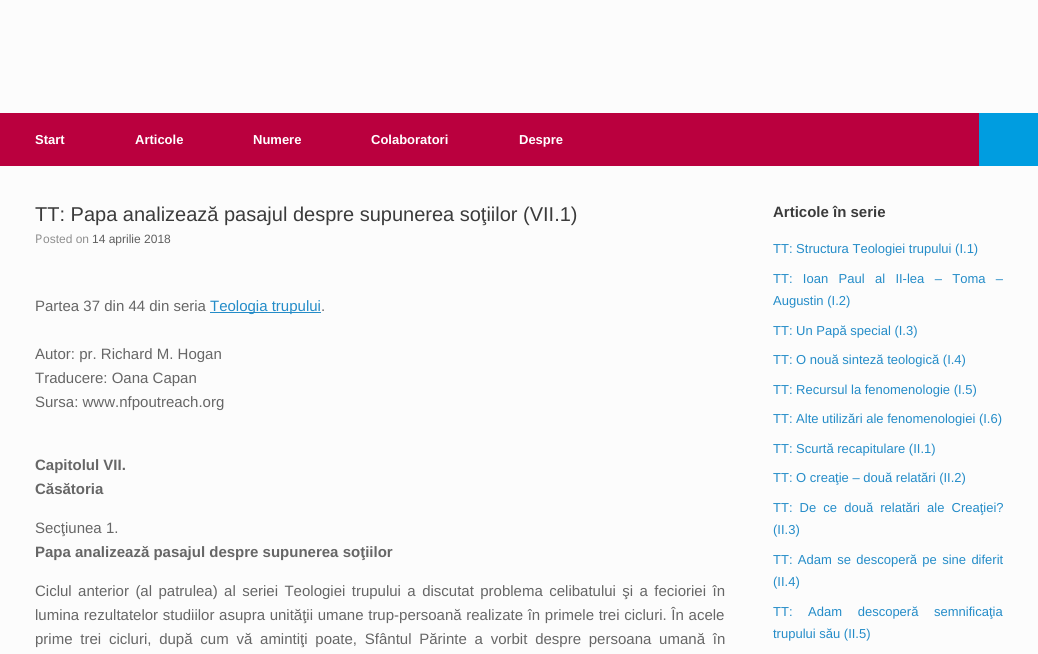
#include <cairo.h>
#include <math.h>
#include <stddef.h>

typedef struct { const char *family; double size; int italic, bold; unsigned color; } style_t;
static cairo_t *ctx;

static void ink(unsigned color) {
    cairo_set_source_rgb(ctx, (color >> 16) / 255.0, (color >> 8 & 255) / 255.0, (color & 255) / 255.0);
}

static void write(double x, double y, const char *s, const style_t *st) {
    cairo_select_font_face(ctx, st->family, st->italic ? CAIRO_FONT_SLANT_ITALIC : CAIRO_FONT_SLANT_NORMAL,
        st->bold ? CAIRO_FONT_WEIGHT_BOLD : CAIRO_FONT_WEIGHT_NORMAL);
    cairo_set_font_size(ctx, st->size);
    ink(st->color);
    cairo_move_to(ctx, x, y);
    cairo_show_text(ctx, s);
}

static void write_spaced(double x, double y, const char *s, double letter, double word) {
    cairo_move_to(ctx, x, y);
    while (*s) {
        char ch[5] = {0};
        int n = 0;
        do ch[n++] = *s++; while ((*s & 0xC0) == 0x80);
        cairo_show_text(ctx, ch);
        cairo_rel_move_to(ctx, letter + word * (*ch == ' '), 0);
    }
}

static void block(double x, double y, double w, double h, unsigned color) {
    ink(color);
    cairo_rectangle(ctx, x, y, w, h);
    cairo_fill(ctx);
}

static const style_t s1 = {"Liberation Sans", 13, 0, 1, 0xffffff};
static const style_t s2 = {"Liberation Sans", 20, 0, 0, 0x3b3b3b};
static const style_t s3 = {"Noto Sans", 12, 0, 0, 0x8f8f8f};
static const style_t s4 = {"Liberation Sans", 12, 0, 0, 0x8f8f8f};
static const style_t s5 = {"Liberation Sans", 12, 0, 0, 0x5e5e5e};
static const style_t s6 = {"Liberation Sans", 15, 0, 0, 0x666666};
static const style_t s7 = {"Liberation Sans", 15, 0, 0, 0x248cc8};
static const style_t s8 = {"Liberation Sans", 15, 0, 1, 0x666666};
static const style_t s9 = {"Liberation Sans", 15, 0, 1, 0x3b3b3b};
static const style_t s10 = {"Liberation Sans", 13, 0, 0, 0x248cc8};

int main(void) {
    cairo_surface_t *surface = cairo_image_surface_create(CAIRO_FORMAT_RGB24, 1038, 654);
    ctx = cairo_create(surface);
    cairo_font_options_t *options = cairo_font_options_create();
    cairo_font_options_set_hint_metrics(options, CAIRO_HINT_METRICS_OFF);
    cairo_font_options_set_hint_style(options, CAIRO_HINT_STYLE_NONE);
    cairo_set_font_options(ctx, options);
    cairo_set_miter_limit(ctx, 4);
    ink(0xfcfcfc);
    cairo_paint(ctx);
    block(0, 113, 979, 53, 0xba003e);
    write(35, 144, "Start", &s1);
    write(135, 144, "Articole", &s1);
    write(253, 144, "Numere", &s1);
    write(371, 144, "Colaboratori", &s1);
    write(519, 144, "Despre", &s1);
    block(979, 113, 59, 53, 0x009de0);
    write(35, 221, "TT: Papa analizează pasajul despre supunerea soţiilor (VII.1)", &s2);
    write(35, 243, "P", &s3);
    write(43, 243, "osted on", &s4);
    write(92, 243, "14 aprilie 2018", &s5);
    write(35, 311, "Partea 37 din 44 din seria", &s6);
    block(210, 312, 111, 1, 0x248cc8);
    write(210, 311, "Teologia trupului", &s7);
    write(321, 311, ".", &s6);
    write(35, 359, "Autor: pr. Richard M. Hogan", &s6);
    write(35, 383, "Traducere: Oana Capan", &s6);
    write(35, 407, "Sursa: www.nfpoutreach.org", &s6);
    write(35, 470, "Capitolul VII.", &s8);
    write(35, 494, "Căsătoria", &s8);
    write(35, 533, "Secţiunea 1.", &s6);
    write(35, 557, "Papa analizează pasajul despre supunerea soţiilor", &s8);
    cairo_select_font_face(ctx, "Liberation Sans", CAIRO_FONT_SLANT_NORMAL, CAIRO_FONT_WEIGHT_NORMAL);
    write_spaced(35, 596, "Ciclul anterior (al patrulea) al seriei Teologiei trupului a discutat problema celibatului şi a fecioriei în", 0, 2.25);
    write_spaced(35, 620, "lumina rezultatelor studiilor asupra unităţii umane trup-persoană realizate în primele trei cicluri. În acele", 0, 0.5);
    write_spaced(35, 644, "prime trei cicluri, după cum vă amintiţi poate, Sfântul Părinte a vorbit despre persoana umană în", 0, 3.6);
    write(773, 217, "Articole în serie", &s9);
    write(773, 253, "TT: Structura Teologiei trupului (I.1)", &s10);
    write_spaced(773, 283, "TT: Ioan Paul al II-lea – Toma –", 0, 6.75);
    write(773, 305, "Augustin (I.2)", &s10);
    write(773, 335, "TT: Un Papă special (I.3)", &s10);
    write(773, 364, "TT: O nouă sinteză teologică (I.4)", &s10);
    write(773, 394, "TT: Recursul la fenomenologie (I.5)", &s10);
    write(773, 423, "TT: Alte utilizări ale fenomenologiei (I.6)", &s10);
    write(773, 453, "TT: Scurtă recapitulare (II.1)", &s10);
    write(773, 482, "TT: O creaţie – două relatări (II.2)", &s10);
    write_spaced(773, 512, "TT: De ce două relatări ale Creaţiei?", 0, 3.5);
    write(773, 534, "(II.3)", &s10);
    write_spaced(773, 564, "TT: Adam se descoperă pe sine diferit", 0, 1.75);
    write(773, 586, "(II.4)", &s10);
    write_spaced(773, 616, "TT: Adam descoperă semnificaţia", 0, 12);
    write(773, 638, "trupului său (II.5)", &s10);
    cairo_surface_write_to_png(surface, "screenshot.png");
    cairo_font_options_destroy(options);
    cairo_destroy(ctx);
    cairo_surface_destroy(surface);
    return 0;
}
